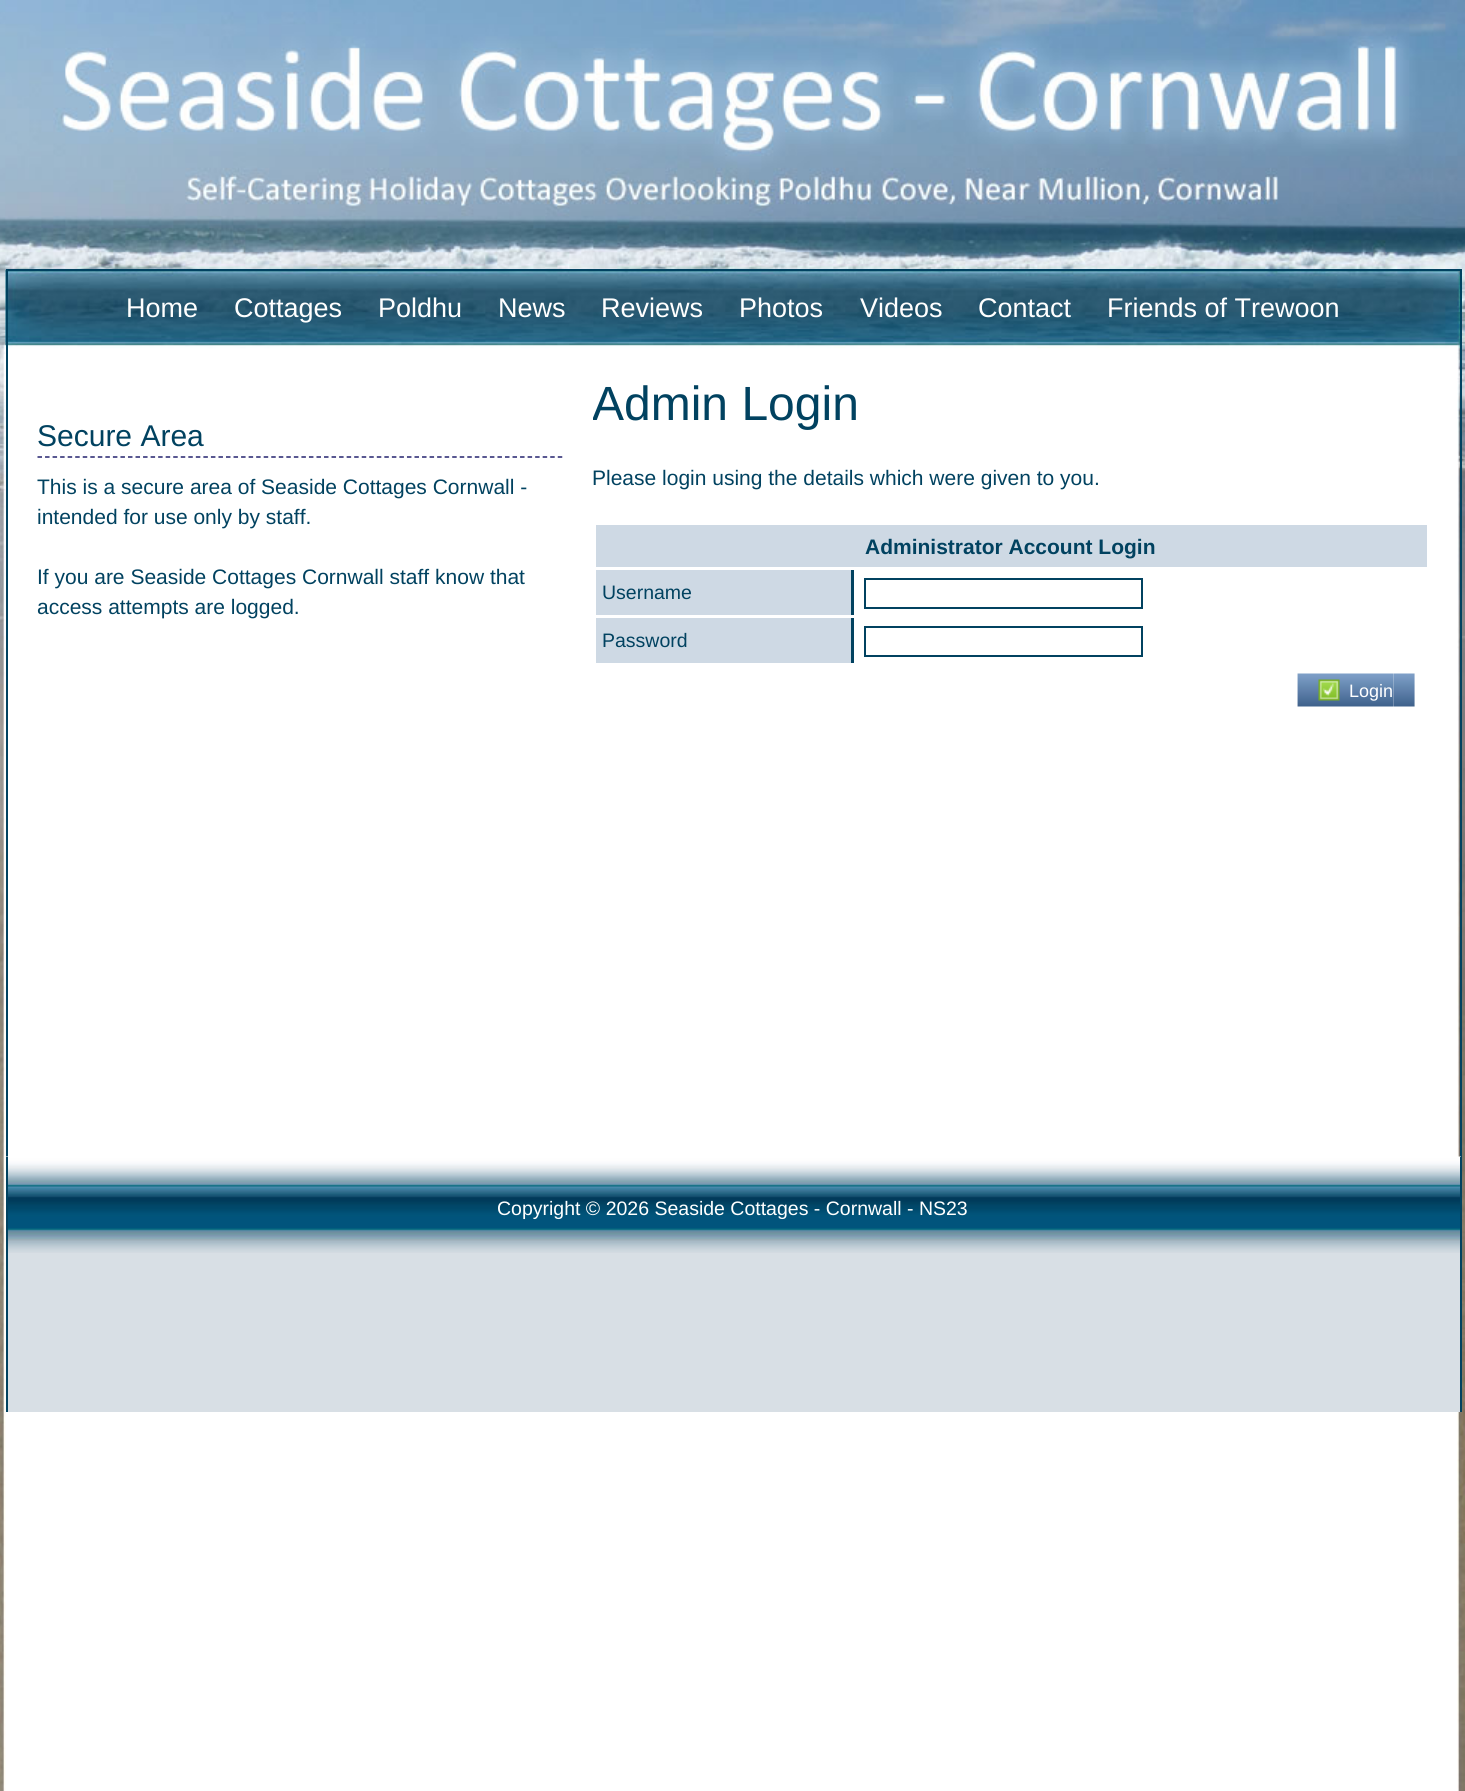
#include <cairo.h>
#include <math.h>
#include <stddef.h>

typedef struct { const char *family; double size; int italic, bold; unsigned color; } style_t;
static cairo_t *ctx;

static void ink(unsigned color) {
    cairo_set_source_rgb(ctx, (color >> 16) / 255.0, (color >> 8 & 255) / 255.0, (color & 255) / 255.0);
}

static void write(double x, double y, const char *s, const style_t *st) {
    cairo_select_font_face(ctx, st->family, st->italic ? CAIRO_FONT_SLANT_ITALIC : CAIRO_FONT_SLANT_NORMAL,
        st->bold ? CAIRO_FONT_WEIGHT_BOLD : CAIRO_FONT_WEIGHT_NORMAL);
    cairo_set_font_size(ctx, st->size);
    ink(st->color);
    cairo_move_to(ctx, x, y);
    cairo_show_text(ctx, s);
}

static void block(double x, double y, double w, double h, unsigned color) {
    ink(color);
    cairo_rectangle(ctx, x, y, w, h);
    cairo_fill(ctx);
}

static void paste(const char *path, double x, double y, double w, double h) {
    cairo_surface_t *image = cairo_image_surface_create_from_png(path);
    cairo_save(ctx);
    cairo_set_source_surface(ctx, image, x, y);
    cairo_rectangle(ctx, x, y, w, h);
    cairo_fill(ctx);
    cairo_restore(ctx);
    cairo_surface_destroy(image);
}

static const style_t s1 = {"Liberation Sans", 27, 0, 0, 0xffffff};
static const style_t s2 = {"Liberation Sans", 30, 0, 0, 0x014260};
static const style_t s3 = {"Liberation Sans", 21, 0, 0, 0x014260};
static const style_t s4 = {"Liberation Sans", 48, 0, 0, 0x014260};
static const style_t s5 = {"Liberation Sans", 21, 0, 1, 0x014260};
static const style_t s6 = {"Liberation Sans", 19.5, 0, 0, 0x014260};
static const style_t s7 = {"Liberation Sans", 18, 0, 0, 0xffffff};
static const style_t s8 = {"Liberation Sans", 19.5, 0, 0, 0xffffff};

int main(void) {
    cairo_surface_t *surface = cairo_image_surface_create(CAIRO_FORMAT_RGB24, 1465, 1791);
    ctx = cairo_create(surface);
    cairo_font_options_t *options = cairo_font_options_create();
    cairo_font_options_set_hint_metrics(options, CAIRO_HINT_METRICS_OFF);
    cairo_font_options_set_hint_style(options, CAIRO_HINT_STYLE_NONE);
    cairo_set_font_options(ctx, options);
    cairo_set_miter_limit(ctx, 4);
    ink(0xffffff);
    cairo_paint(ctx);
    paste("pic1.png", 0, 927, 1465, 864);
    paste("pic2.png", 0, 0, 1465, 927);
    block(6, 269, 1455, 2, 0x014260);
    block(1460, 269, 2, 888, 0x014260);
    block(6, 269, 2, 888, 0x014260);
    write(126, 317, "Home", &s1);
    write(234, 317, "Cottages", &s1);
    write(378, 317, "Poldhu", &s1);
    write(498, 317, "News", &s1);
    write(601, 317, "Reviews", &s1);
    write(739, 317, "Photos", &s1);
    write(860, 317, "Videos", &s1);
    write(978, 317, "Contact", &s1);
    write(1107, 317, "Friends of Trewoon", &s1);
    cairo_new_path(ctx);
    cairo_move_to(ctx, 37.5, 457);
    cairo_line_to(ctx, 562.5, 457);
    ink(0x22216d);
    cairo_set_line_width(ctx, 1.5);
    cairo_set_dash(ctx, (double[]){4.5, 3.04}, 2, 0);
    cairo_stroke(ctx);
    write(37, 446, "Secure Area", &s2);
    write(37, 494, "This is a secure area of Seaside Cottages Cornwall -", &s3);
    write(37, 524, "intended for use only by staff.", &s3);
    write(37, 584, "If you are Seaside Cottages Cornwall staff know that", &s3);
    write(37, 614, "access attempts are logged.", &s3);
    cairo_save(ctx);
    cairo_rectangle(ctx, 593, 377, 837, 600);
    cairo_clip(ctx);
    write(592, 420, "Admin Login", &s4);
    cairo_restore(ctx);
    write(592, 485, "Please login using the details which were given to you.", &s3);
    block(596, 525, 831, 42, 0xced9e4);
    write(865, 554, "Administrator Account Login", &s5);
    block(596, 570, 255, 45, 0xced9e4);
    block(851, 570, 3, 45, 0x014260);
    write(602, 599, "Username", &s6);
    cairo_rectangle(ctx, 865, 579, 277, 29);
    cairo_set_line_width(ctx, 2);
    cairo_set_dash(ctx, NULL, 0, 0);
    cairo_stroke(ctx);
    block(596, 618, 255, 45, 0xced9e4);
    block(851, 618, 3, 45, 0x014260);
    write(602, 647, "Password", &s6);
    cairo_rectangle(ctx, 865, 627, 277, 29);
    cairo_stroke(ctx);
    paste("pic3.png", 1393, 673, 22, 34);
    paste("pic4.png", 1297, 673, 97, 34);
    paste("pic5.png", 1318, 679, 22, 22);
    write(1349, 697, "Login", &s7);
    block(8, 1253, 1452, 159, 0xd8dfe5);
    paste("pic6.png", 6, 1156, 1455, 97);
    block(1460, 1157, 2, 255, 0x014260);
    block(6, 1157, 2, 255, 0x014260);
    write(497, 1215, "Copyright © 2026 Seaside Cottages - Cornwall - NS23", &s8);
    cairo_surface_write_to_png(surface, "screenshot.png");
    cairo_font_options_destroy(options);
    cairo_destroy(ctx);
    cairo_surface_destroy(surface);
    return 0;
}
